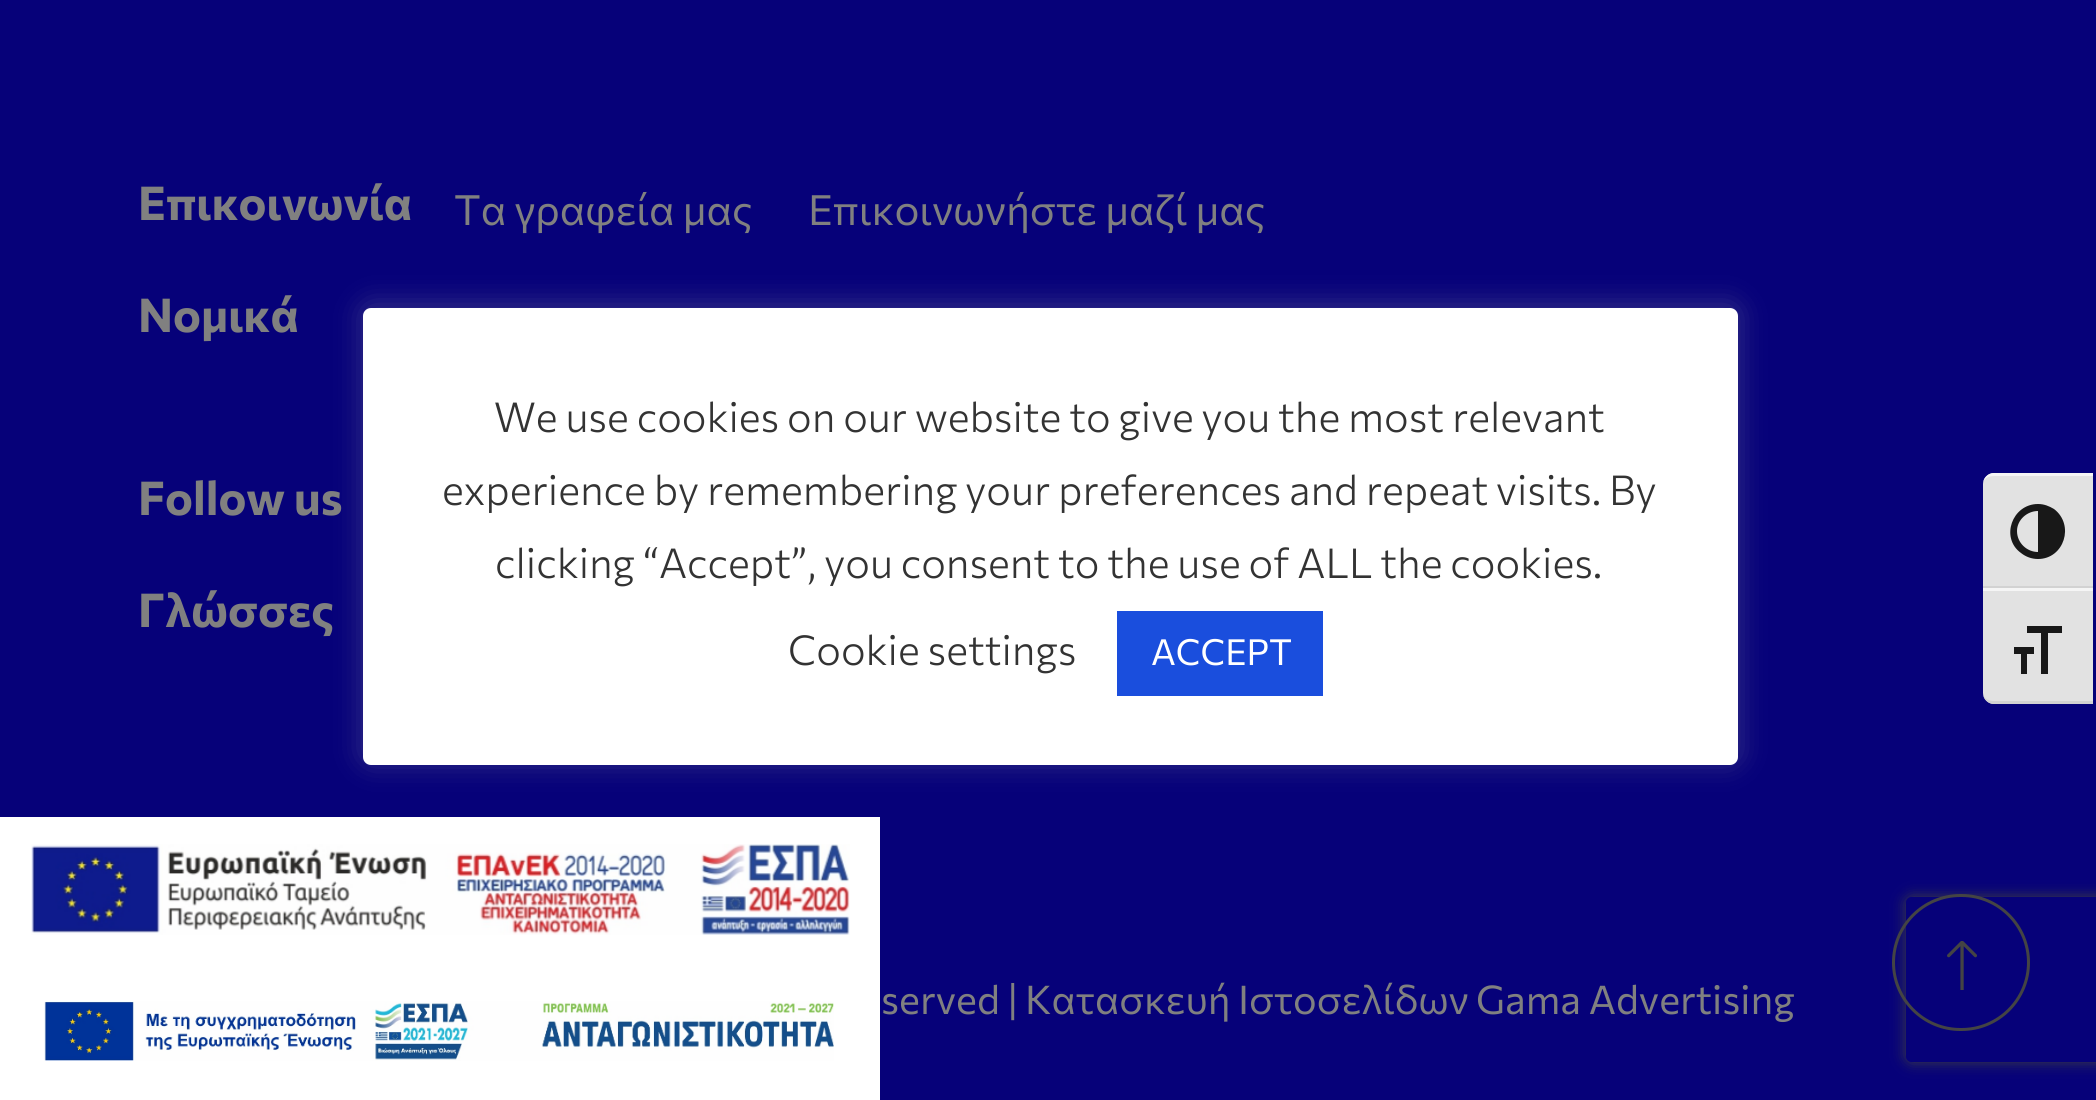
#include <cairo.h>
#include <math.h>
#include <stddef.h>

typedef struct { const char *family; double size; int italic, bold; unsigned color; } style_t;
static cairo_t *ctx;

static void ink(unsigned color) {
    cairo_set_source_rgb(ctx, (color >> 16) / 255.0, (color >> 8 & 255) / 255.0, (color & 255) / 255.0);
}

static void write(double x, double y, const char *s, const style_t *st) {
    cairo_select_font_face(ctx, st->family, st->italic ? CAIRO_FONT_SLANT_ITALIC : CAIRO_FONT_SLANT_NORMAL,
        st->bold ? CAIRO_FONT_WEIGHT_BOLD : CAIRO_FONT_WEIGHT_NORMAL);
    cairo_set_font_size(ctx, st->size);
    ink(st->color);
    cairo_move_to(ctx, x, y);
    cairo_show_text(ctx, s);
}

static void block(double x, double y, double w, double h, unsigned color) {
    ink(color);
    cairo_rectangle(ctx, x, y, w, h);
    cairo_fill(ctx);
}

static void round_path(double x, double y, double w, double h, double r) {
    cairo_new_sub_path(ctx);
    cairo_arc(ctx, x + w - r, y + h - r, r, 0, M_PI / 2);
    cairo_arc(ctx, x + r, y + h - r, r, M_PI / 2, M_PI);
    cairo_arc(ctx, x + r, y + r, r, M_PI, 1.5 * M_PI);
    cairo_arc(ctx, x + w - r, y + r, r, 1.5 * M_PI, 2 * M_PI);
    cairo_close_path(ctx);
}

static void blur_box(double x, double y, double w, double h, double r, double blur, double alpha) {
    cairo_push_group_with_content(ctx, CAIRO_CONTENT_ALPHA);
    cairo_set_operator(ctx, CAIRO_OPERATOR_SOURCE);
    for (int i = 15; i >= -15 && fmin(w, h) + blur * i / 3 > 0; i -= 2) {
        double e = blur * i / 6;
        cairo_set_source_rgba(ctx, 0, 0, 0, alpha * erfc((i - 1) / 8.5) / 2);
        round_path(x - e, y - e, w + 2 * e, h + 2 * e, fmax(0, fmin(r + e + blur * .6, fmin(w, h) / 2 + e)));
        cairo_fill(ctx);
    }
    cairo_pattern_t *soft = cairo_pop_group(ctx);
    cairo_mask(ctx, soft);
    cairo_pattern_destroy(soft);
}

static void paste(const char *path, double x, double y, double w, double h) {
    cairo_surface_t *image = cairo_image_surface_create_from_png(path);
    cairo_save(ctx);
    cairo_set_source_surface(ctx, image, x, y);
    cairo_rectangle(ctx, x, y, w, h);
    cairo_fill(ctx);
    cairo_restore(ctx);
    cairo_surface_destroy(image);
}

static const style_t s1 = {"Commissioner", 46.75, 0, 1, 0x808080};
static const style_t s2 = {"Commissioner", 41.75, 0, 0, 0x808080};
static const style_t s3 = {"Commissioner", 39.6, 0, 0, 0x808080};
static const style_t s4 = {"Commissioner Light", 41.25, 0, 0, 0x333333};
static const style_t s5 = {"Commissioner", 36, 0, 0, 0xffffff};

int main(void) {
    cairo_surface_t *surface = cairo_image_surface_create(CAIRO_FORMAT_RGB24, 2096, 1100);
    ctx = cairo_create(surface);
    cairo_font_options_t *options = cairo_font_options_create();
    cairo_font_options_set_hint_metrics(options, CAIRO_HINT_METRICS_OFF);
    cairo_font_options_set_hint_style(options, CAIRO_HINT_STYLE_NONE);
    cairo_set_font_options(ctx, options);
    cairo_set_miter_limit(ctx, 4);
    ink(0x060179);
    cairo_paint(ctx);
    write(138, 220, "Επικοινωνία", &s1);
    write(454, 225, "Τα γραφεία μας", &s2);
    write(808, 225, "Επικοινωνήστε μαζί μας", &s2);
    write(138, 332, "Νομικά", &s1);
    write(138, 515, "Follow us", &s1);
    write(138, 627, "Γλώσσες", &s1);
    write(881, 1014, "served |", &s3);
    write(1025, 1014, "Κατασκευή Ιστοσελίδων Gama Advertising", &s3);
    ink(0xacabab);
    blur_box(363, 305, 1375, 457, 8, 14, 0.3);
    ink(0xffffff);
    round_path(363, 308, 1375, 457, 8);
    cairo_fill(ctx);
    write(494, 432, "We use cookies on our website to give you the most relevant", &s4);
    write(442, 505, "experience by remembering your preferences and repeat visits. By", &s4);
    write(495, 578, "clicking “Accept”, you consent to the use of ALL the cookies.", &s4);
    write(788, 665, "Cookie settings", &s4);
    block(1117, 611, 206, 85, 0x1a4edd);
    write(1151, 665, "ACCEPT", &s5);
    ink(0xe2e2e2);
    cairo_new_path(ctx);
    cairo_move_to(ctx, 1994, 473);
    cairo_line_to(ctx, 2093, 473);
    cairo_line_to(ctx, 2093, 589);
    cairo_line_to(ctx, 1983, 589);
    cairo_line_to(ctx, 1983, 484);
    cairo_curve_to(ctx, 1983, 478, 1988, 473, 1994, 473);
    cairo_close_path(ctx);
    cairo_fill(ctx);
    ink(0xf5f5f5);
    cairo_new_path(ctx);
    cairo_move_to(ctx, 1994, 473);
    cairo_curve_to(ctx, 1988, 473, 1983, 478, 1983, 484);
    cairo_curve_to(ctx, 1983, 479, 1988, 476, 1994, 476);
    cairo_line_to(ctx, 2093, 476);
    cairo_line_to(ctx, 2093, 473);
    cairo_close_path(ctx);
    cairo_fill(ctx);
    block(1983, 586, 110, 2, 0xd2d2d2);
    ink(0x181818);
    cairo_new_path(ctx);
    cairo_move_to(ctx, 2038, 504);
    cairo_curve_to(ctx, 2012, 504, 2000, 538, 2021, 553);
    cairo_curve_to(ctx, 2026, 557, 2032, 559, 2038, 559);
    cairo_curve_to(ctx, 2064, 559, 2075, 525, 2054, 509);
    cairo_curve_to(ctx, 2049, 506, 2044, 504, 2038, 504);
    cairo_close_path(ctx);
    cairo_move_to(ctx, 2017, 531);
    cairo_curve_to(ctx, 2017, 520, 2027, 511, 2038, 511);
    cairo_line_to(ctx, 2038, 552);
    cairo_curve_to(ctx, 2027, 552, 2017, 543, 2017, 531);
    cairo_close_path(ctx);
    cairo_fill(ctx);
    ink(0xe2e2e2);
    cairo_new_path(ctx);
    cairo_move_to(ctx, 1983, 589);
    cairo_line_to(ctx, 2093, 589);
    cairo_line_to(ctx, 2093, 704);
    cairo_line_to(ctx, 1994, 704);
    cairo_curve_to(ctx, 1988, 704, 1983, 699, 1983, 693);
    cairo_close_path(ctx);
    cairo_fill(ctx);
    block(1983, 588, 110, 3, 0xf5f5f5);
    ink(0xd2d2d2);
    cairo_new_path(ctx);
    cairo_move_to(ctx, 2093, 704);
    cairo_line_to(ctx, 1994, 704);
    cairo_curve_to(ctx, 1988, 704, 1983, 699, 1983, 693);
    cairo_curve_to(ctx, 1983, 698, 1988, 701, 1994, 701);
    cairo_line_to(ctx, 2093, 701);
    cairo_close_path(ctx);
    cairo_fill(ctx);
    ink(0x181818);
    cairo_new_path(ctx);
    cairo_move_to(ctx, 2014, 647);
    cairo_line_to(ctx, 2034, 647);
    cairo_line_to(ctx, 2034, 654);
    cairo_line_to(ctx, 2027, 654);
    cairo_line_to(ctx, 2027, 674);
    cairo_line_to(ctx, 2021, 674);
    cairo_line_to(ctx, 2021, 654);
    cairo_line_to(ctx, 2014, 654);
    cairo_close_path(ctx);
    cairo_move_to(ctx, 2062, 633);
    cairo_line_to(ctx, 2048, 633);
    cairo_line_to(ctx, 2048, 674);
    cairo_line_to(ctx, 2041, 674);
    cairo_line_to(ctx, 2041, 633);
    cairo_line_to(ctx, 2027, 633);
    cairo_line_to(ctx, 2027, 626);
    cairo_line_to(ctx, 2062, 626);
    cairo_close_path(ctx);
    cairo_fill(ctx);
    block(0, 817, 880, 283, 0xffffff);
    paste("pic1.png", 31, 844, 819, 91);
    paste("pic2.png", 44, 1001, 790, 60);
    cairo_save(ctx);
    cairo_set_fill_rule(ctx, CAIRO_FILL_RULE_EVEN_ODD);
    cairo_new_path(ctx);
    cairo_move_to(ctx, 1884, 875);
    cairo_line_to(ctx, 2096, 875);
    cairo_line_to(ctx, 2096, 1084);
    cairo_line_to(ctx, 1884, 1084);
    cairo_close_path(ctx);
    cairo_move_to(ctx, 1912, 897);
    cairo_line_to(ctx, 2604, 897);
    cairo_curve_to(ctx, 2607.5, 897, 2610, 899.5, 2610, 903);
    cairo_line_to(ctx, 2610, 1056);
    cairo_curve_to(ctx, 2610, 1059.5, 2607.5, 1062, 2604, 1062);
    cairo_line_to(ctx, 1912, 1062);
    cairo_curve_to(ctx, 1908.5, 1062, 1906, 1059.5, 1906, 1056);
    cairo_line_to(ctx, 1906, 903);
    cairo_curve_to(ctx, 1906, 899.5, 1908.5, 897, 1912, 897);
    cairo_close_path(ctx);
    cairo_clip(ctx);
    ink(0x404040);
    blur_box(1906, 897, 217, 165, 6, 7, 1);
    cairo_restore(ctx);
    round_path(1893.5, 895.5, 135, 134, 67);
    ink(0x444444);
    cairo_set_line_width(ctx, 3);
    cairo_stroke(ctx);
    paste("pic3.png", 1947, 941, 30, 49);
    cairo_surface_write_to_png(surface, "screenshot.png");
    cairo_font_options_destroy(options);
    cairo_destroy(ctx);
    cairo_surface_destroy(surface);
    return 0;
}
